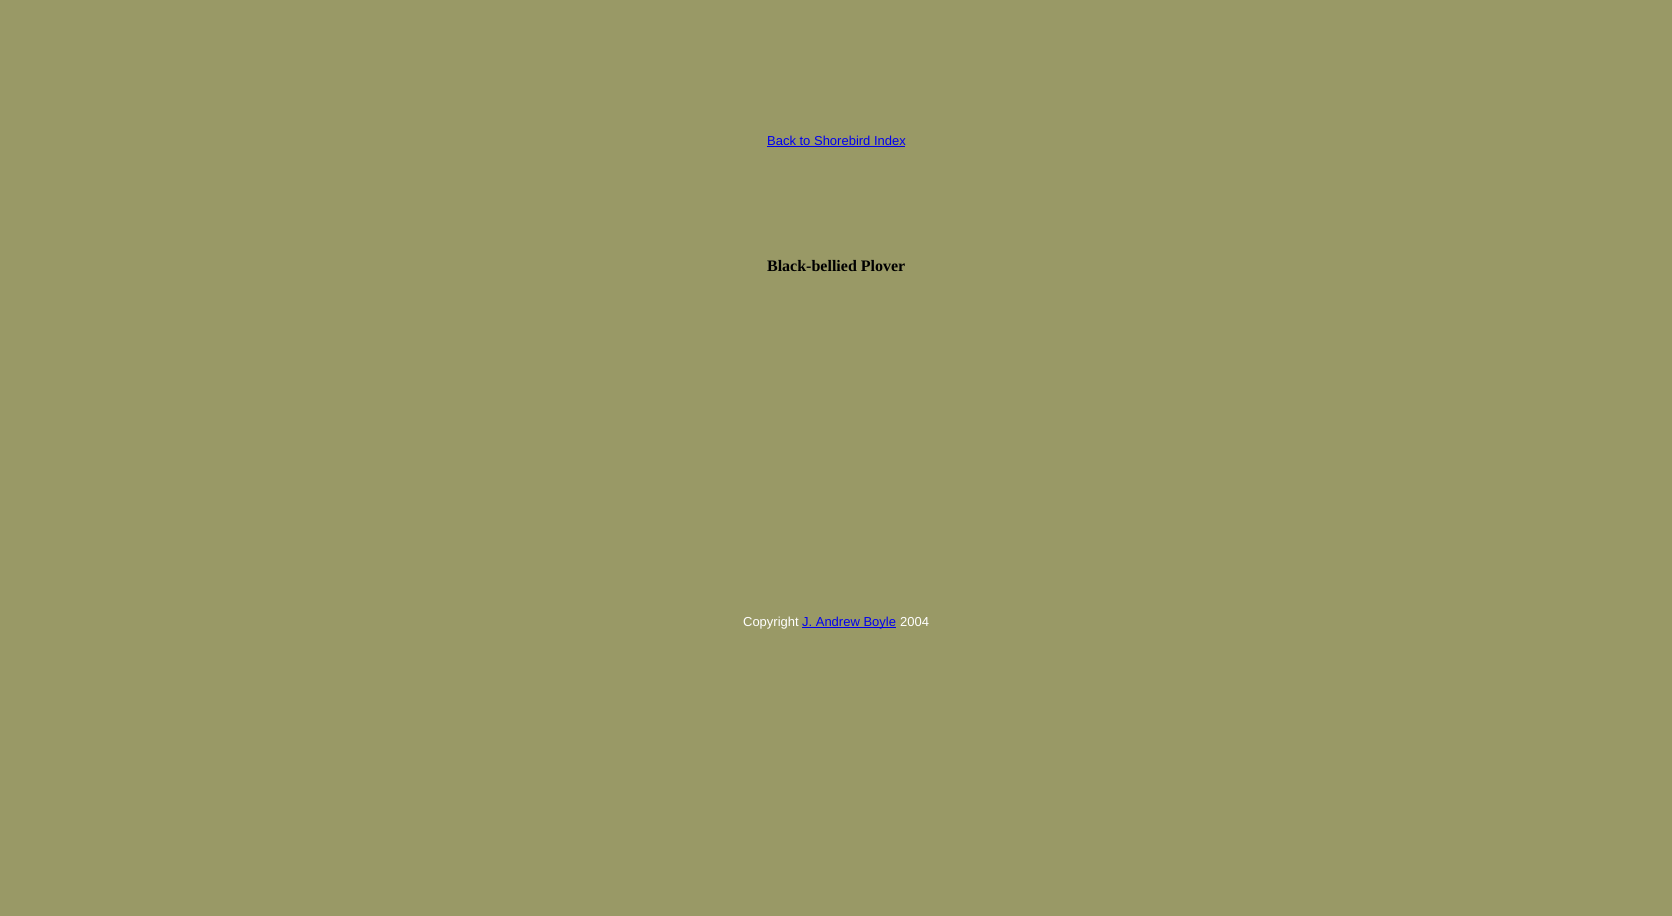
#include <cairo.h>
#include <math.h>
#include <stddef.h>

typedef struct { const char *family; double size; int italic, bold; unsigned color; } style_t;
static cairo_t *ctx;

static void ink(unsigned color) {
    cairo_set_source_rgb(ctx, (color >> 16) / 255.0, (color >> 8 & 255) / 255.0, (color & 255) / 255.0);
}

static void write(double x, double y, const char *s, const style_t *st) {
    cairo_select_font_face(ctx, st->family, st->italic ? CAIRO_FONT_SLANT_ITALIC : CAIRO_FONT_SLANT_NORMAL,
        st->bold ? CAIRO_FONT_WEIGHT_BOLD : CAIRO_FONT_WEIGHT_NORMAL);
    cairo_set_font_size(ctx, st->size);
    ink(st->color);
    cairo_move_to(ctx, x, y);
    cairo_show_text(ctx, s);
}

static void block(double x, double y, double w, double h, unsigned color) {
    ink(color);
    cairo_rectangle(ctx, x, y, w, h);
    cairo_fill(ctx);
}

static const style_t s1 = {"Liberation Sans", 13, 0, 0, 0x0000ee};
static const style_t s2 = {"Liberation Serif", 16, 0, 1, 0x000000};
static const style_t s3 = {"Liberation Sans", 13, 0, 0, 0xffffff};

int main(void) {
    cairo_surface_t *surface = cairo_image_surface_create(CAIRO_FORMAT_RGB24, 1672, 916);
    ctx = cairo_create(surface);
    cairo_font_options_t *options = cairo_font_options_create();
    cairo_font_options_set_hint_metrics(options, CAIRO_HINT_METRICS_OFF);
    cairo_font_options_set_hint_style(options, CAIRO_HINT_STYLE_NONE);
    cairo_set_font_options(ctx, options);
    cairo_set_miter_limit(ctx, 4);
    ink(0x999966);
    cairo_paint(ctx);
    write(767, 145, "Back to Shorebird Index", &s1);
    block(767, 146, 138, 1, 0x0000ee);
    write(767, 271, "Black-bellied Plover", &s2);
    write(743, 626, "Copyright", &s3);
    block(802, 627, 94, 1, 0x0000ee);
    write(802, 626, "J. Andrew Boyle", &s1);
    write(900, 626, "2004", &s3);
    cairo_surface_write_to_png(surface, "screenshot.png");
    cairo_font_options_destroy(options);
    cairo_destroy(ctx);
    cairo_surface_destroy(surface);
    return 0;
}
